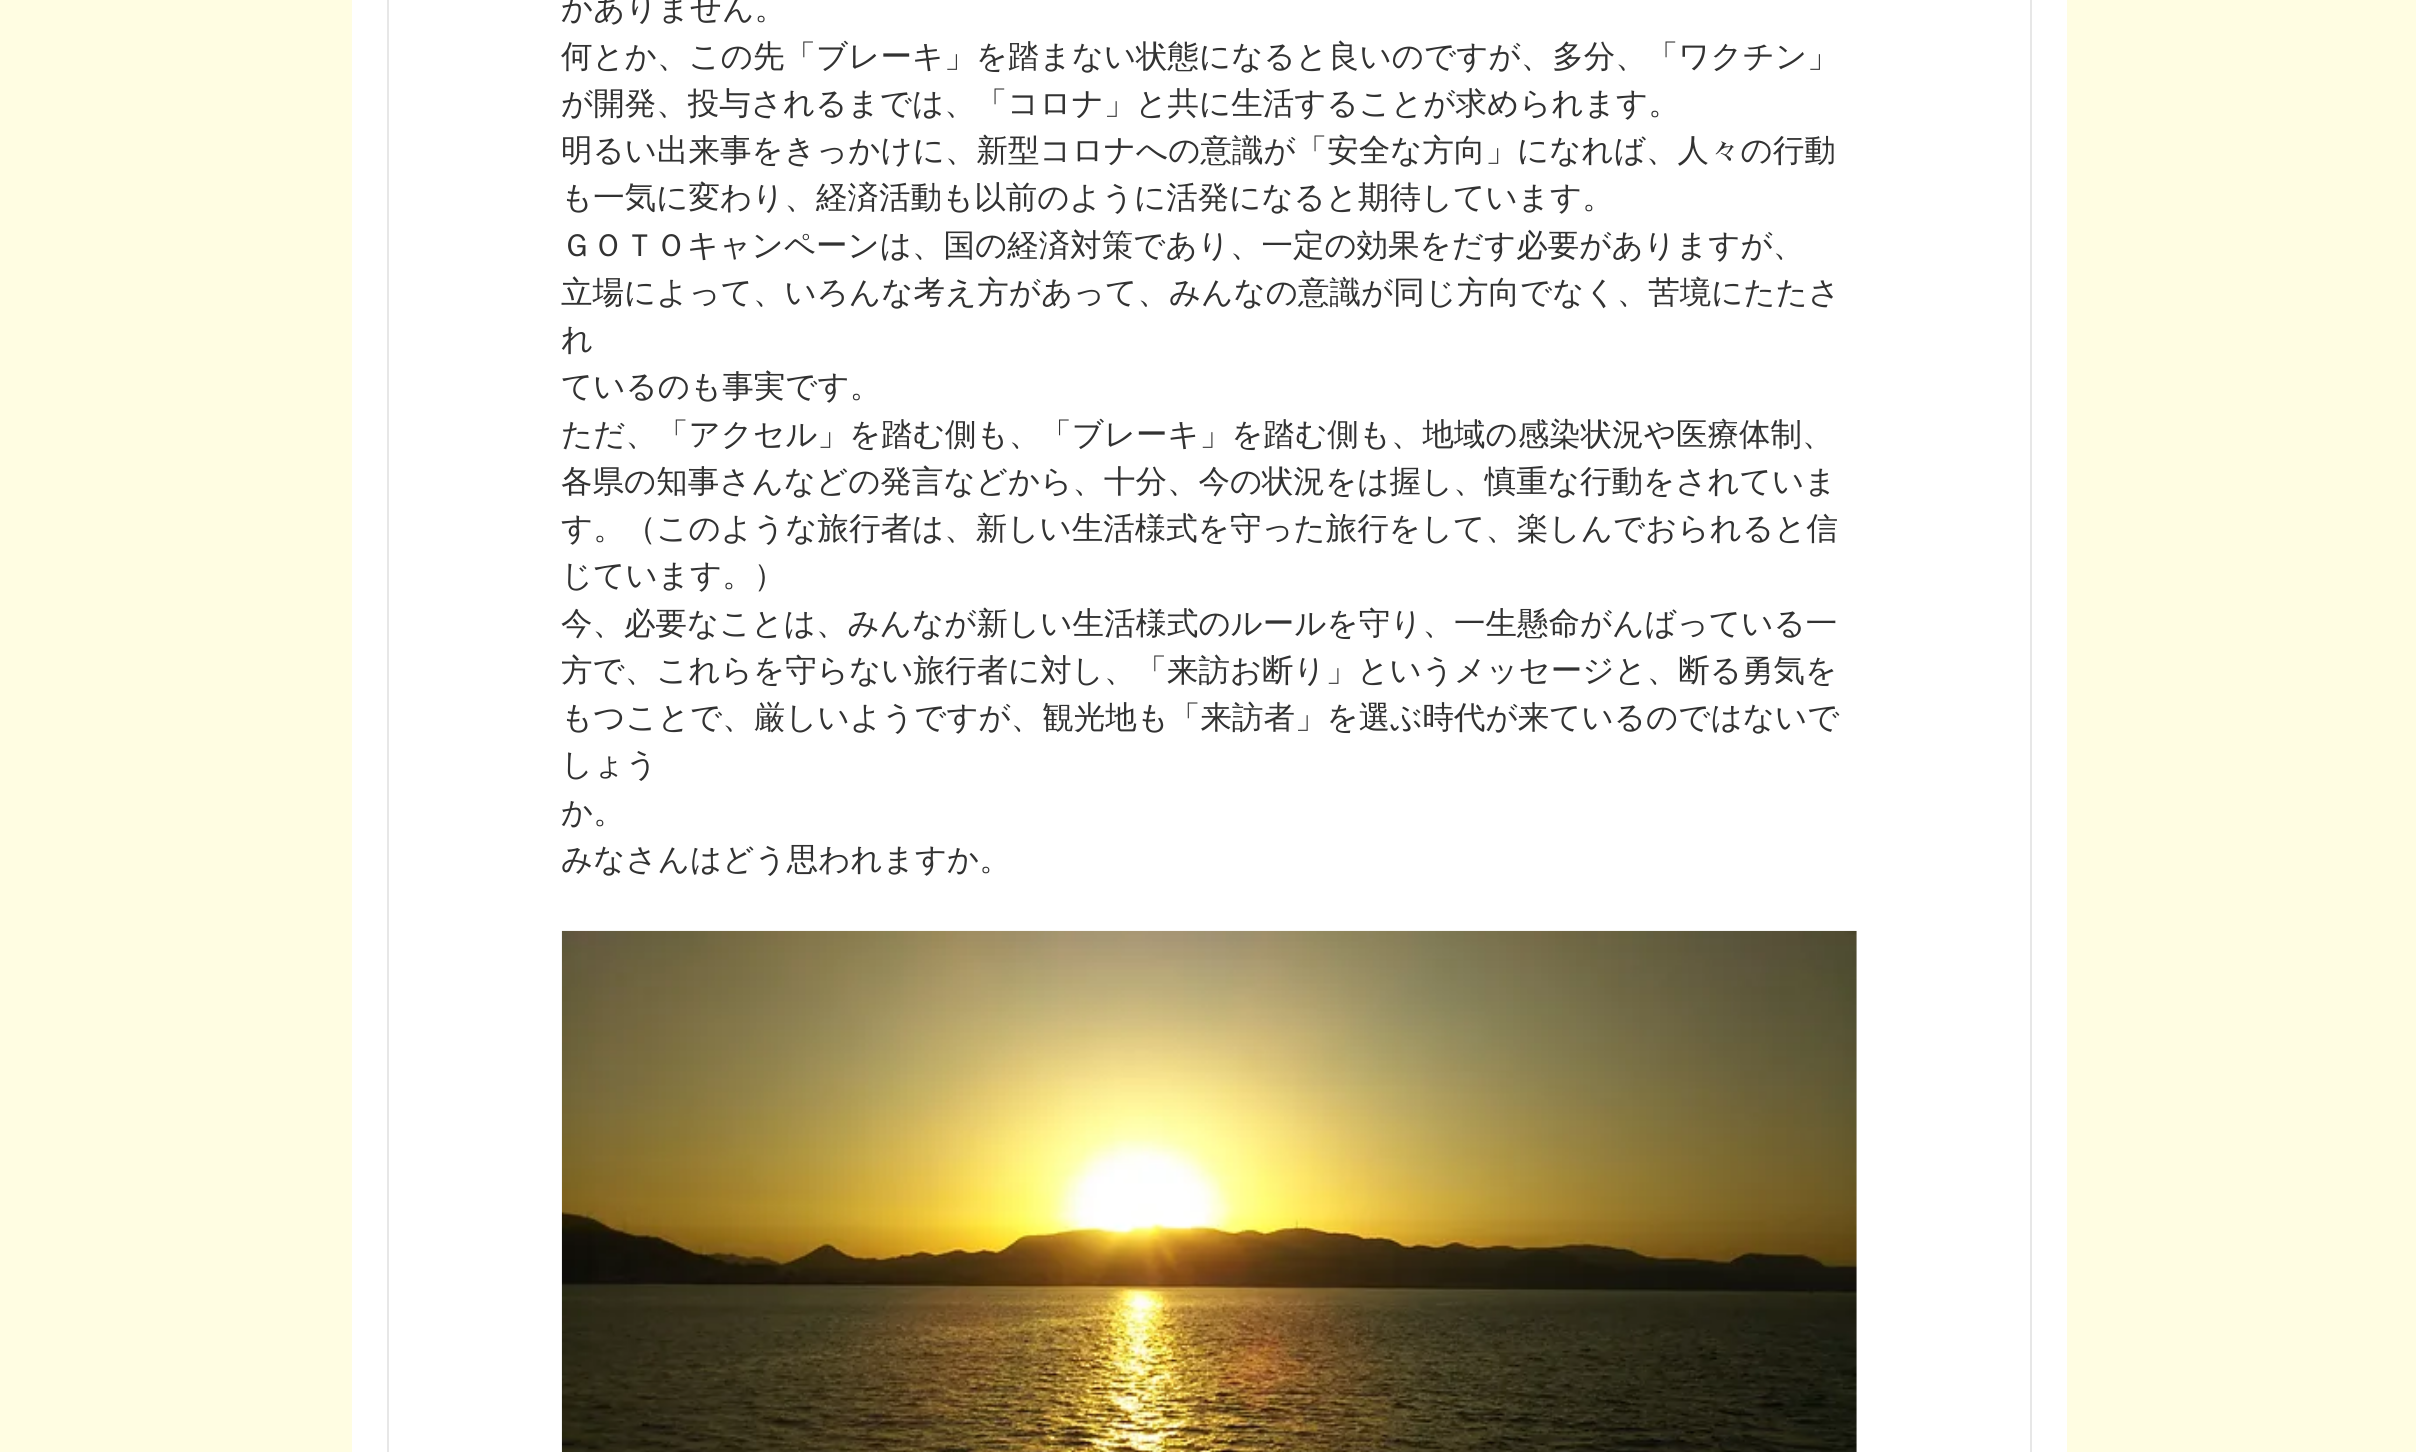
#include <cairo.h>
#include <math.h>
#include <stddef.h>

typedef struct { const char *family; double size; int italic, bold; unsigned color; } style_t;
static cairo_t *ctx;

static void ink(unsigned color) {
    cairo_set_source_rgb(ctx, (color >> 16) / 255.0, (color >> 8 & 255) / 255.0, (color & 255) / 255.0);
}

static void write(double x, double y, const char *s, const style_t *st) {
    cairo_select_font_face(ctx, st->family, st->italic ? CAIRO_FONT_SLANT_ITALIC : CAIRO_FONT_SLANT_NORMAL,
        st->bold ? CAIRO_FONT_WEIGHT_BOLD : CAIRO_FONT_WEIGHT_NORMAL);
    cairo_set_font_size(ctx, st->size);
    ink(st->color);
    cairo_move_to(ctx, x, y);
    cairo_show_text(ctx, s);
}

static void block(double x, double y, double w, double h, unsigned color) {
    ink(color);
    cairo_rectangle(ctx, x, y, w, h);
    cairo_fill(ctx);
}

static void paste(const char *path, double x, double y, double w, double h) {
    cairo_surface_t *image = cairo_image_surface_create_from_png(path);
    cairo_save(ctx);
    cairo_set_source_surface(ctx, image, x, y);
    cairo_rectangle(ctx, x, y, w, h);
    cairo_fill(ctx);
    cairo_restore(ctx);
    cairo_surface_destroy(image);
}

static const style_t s1 = {"WenQuanYi Zen Hei Medium", 31.5, 0, 0, 0x323232};

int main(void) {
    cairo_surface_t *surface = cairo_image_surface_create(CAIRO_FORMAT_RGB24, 2416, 1452);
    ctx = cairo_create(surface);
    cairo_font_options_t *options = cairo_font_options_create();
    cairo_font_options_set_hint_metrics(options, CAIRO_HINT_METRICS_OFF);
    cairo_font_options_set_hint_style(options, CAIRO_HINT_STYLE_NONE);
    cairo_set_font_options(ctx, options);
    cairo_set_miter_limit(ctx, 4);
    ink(0xfffde2);
    cairo_paint(ctx);
    block(352, 0, 1715, 1452, 0xffffff);
    cairo_rectangle(ctx, 388, -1, 1643, 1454);
    ink(0xe7e7e7);
    cairo_stroke(ctx);
    write(561, 19, "かありません。", &s1);
    write(561, 67, "何とか、この先「ブレーキ」を踏まない状態になると良いのですが、多分、「ワクチン」", &s1);
    write(561, 114, "が開発、投与されるまでは、「コロナ」と共に生活することが求められます。", &s1);
    write(561, 161, "明るい出来事をきっかけに、新型コロナへの意識が「安全な方向」になれば、人々の行動", &s1);
    write(561, 208, "も一気に変わり、経済活動も以前のように活発になると期待しています。", &s1);
    write(561, 256, "ＧＯＴＯキャンペーンは、国の経済対策であり、一定の効果をだす必要がありますが、", &s1);
    write(561, 303, "立場によって、いろんな考え方があって、みんなの意識が同じ方向でなく、苦境にたたさ", &s1);
    write(561, 350, "れ", &s1);
    write(561, 397, "ているのも事実です。", &s1);
    write(561, 445, "ただ、「アクセル」を踏む側も、「ブレーキ」を踏む側も、地域の感染状況や医療体制、", &s1);
    write(561, 492, "各県の知事さんなどの発言などから、十分、今の状況をは握し、慎重な行動をされていま", &s1);
    write(561, 539, "す。（このような旅行者は、新しい生活様式を守った旅行をして、楽しんでおられると信", &s1);
    write(561, 586, "じています。）", &s1);
    write(561, 634, "今、必要なことは、みんなが新しい生活様式のルールを守り、一生懸命がんばっている一", &s1);
    write(561, 681, "方で、これらを守らない旅行者に対し、「来訪お断り」というメッセージと、断る勇気を", &s1);
    write(561, 728, "もつことで、厳しいようですが、観光地も「来訪者」を選ぶ時代が来ているのではないで", &s1);
    write(561, 775, "しょう", &s1);
    write(561, 823, "か。", &s1);
    write(561, 870, "みなさんはどう思われますか。", &s1);
    paste("pic1.png", 561, 930, 1296, 522);
    cairo_surface_write_to_png(surface, "screenshot.png");
    cairo_font_options_destroy(options);
    cairo_destroy(ctx);
    cairo_surface_destroy(surface);
    return 0;
}
